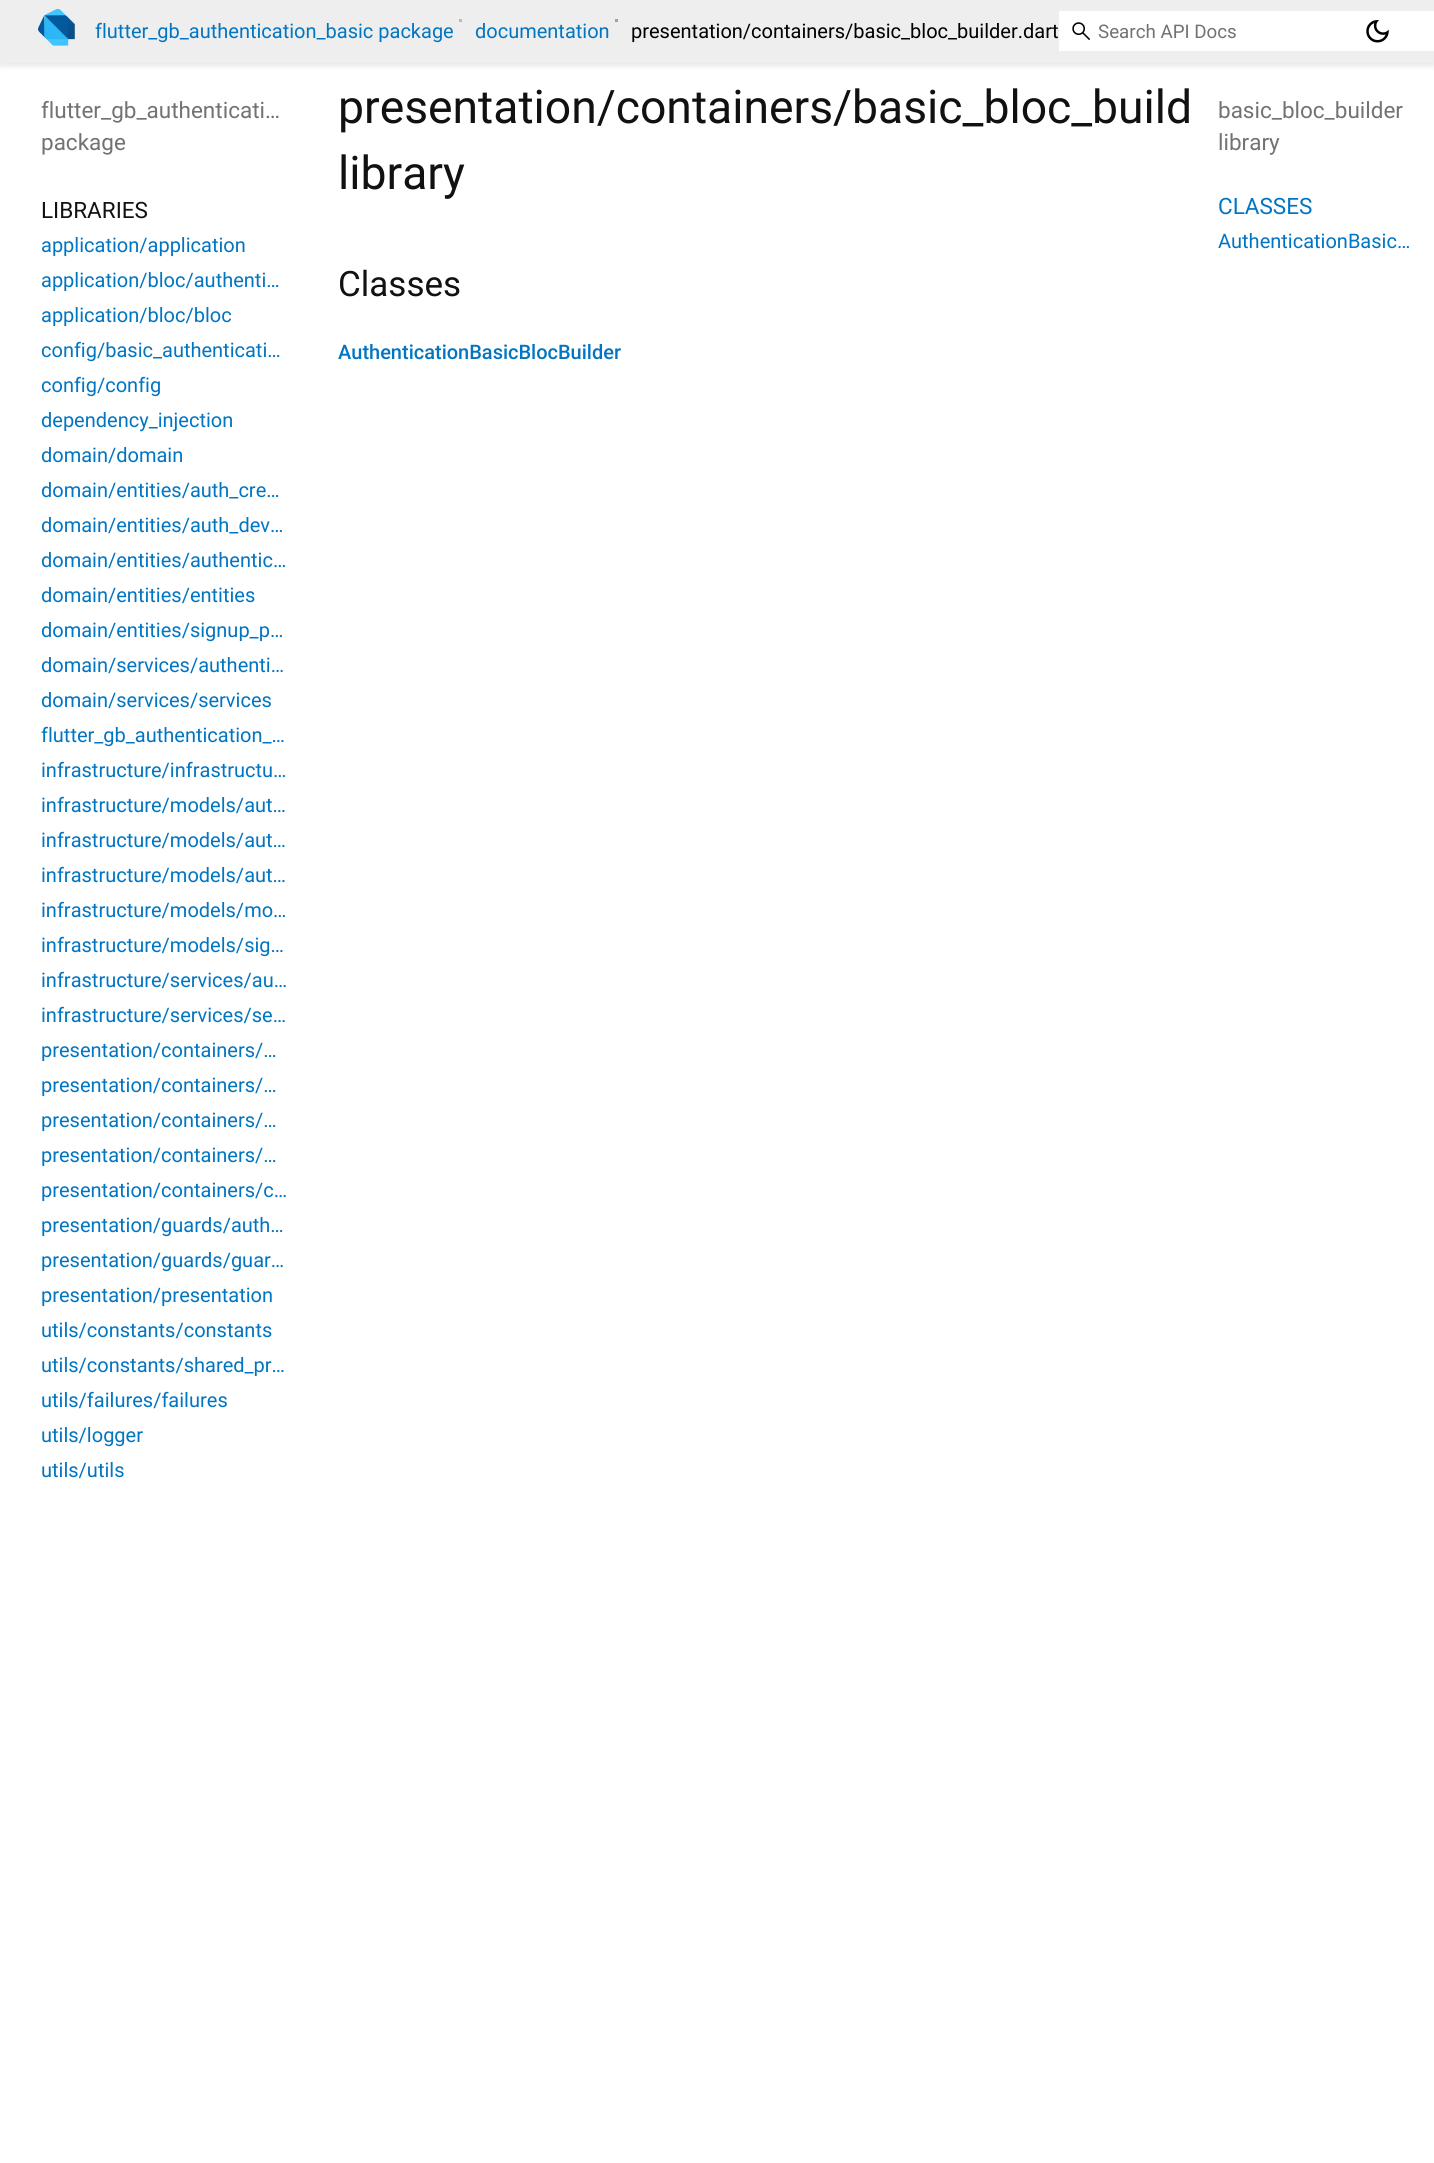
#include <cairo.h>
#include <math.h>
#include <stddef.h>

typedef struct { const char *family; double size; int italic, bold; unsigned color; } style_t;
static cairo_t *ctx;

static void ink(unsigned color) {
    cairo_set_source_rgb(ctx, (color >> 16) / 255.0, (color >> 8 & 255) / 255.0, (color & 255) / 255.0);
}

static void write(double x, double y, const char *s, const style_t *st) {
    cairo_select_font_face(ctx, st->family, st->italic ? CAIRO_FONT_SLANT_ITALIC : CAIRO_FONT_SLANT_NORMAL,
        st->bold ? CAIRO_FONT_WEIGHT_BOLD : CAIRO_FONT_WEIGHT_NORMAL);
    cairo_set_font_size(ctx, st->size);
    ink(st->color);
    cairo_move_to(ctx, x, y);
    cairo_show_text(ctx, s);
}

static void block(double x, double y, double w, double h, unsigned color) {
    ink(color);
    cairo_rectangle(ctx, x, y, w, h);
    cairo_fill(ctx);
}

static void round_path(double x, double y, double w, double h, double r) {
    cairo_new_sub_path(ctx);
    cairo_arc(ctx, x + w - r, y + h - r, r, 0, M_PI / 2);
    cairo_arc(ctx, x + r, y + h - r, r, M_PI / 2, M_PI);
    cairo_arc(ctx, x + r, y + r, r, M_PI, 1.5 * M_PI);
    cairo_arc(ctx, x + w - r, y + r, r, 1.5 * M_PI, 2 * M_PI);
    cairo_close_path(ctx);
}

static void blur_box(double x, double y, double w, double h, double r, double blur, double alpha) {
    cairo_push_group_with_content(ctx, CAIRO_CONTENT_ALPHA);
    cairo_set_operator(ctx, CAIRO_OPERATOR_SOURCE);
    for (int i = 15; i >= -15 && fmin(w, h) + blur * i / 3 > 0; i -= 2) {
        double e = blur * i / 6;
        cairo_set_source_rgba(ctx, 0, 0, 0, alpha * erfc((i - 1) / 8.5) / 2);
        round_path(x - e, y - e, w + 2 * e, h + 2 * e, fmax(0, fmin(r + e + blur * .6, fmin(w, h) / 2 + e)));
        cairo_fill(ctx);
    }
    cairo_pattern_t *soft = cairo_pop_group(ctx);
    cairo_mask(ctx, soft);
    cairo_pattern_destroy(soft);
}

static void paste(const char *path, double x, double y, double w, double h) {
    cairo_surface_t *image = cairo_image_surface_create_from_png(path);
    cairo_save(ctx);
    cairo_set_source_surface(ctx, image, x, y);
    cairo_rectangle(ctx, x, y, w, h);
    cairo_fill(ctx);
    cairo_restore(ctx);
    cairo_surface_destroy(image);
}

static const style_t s1 = {"Roboto", 20, 0, 0, 0x0175c2};
static const style_t s2 = {"Roboto", 20, 0, 0, 0x000000};
static const style_t s3 = {"Roboto", 18.75, 0, 0, 0x727272};
static const style_t s4 = {"Roboto", 22.5, 0, 0, 0x727272};
static const style_t s5 = {"Roboto", 22.5, 0, 0, 0x111111};
static const style_t s6 = {"Roboto", 46.25, 0, 0, 0x111111};
static const style_t s7 = {"Roboto", 35, 0, 0, 0x111111};
static const style_t s8 = {"Roboto Medium", 20, 0, 0, 0x0175c2};
static const style_t s9 = {"Roboto", 22.5, 0, 0, 0x0175c2};

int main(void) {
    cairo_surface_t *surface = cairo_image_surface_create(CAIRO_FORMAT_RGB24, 1434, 2163);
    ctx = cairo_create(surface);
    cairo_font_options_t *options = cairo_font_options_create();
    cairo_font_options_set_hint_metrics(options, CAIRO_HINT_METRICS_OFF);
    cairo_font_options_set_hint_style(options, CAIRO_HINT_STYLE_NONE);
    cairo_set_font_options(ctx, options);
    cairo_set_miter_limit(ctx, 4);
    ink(0xffffff);
    cairo_paint(ctx);
    ink(0x000000);
    blur_box(0, 4, 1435, 62, 0, 3, 0.1);
    block(0, 0, 1434, 63, 0xeeeeee);
    paste("pic1.png", 38, 9, 37, 37);
    write(95, 38, "flutter_gb_authentication_basic package", &s1);
    block(459, 19, 3, 3, 0xbbbbbb);
    write(475, 38, "documentation", &s1);
    block(615, 19, 3, 3, 0xa1a1a1);
    write(631, 38, "presentation/containers/basic_bloc_builder.dart", &s2);
    block(1059, 11, 375, 40, 0xffffff);
    paste("pic2.png", 1072, 22, 19, 19);
    write(1098, 38, "Search API Docs", &s3);
    paste("pic3.png", 1366, 20, 23, 23);
    write(41, 118, "flutter_gb_authenticati…", &s4);
    write(41, 150, "package", &s4);
    write(41, 218, "LIBRARIES", &s5);
    write(41, 252, "application/application", &s1);
    write(41, 287, "application/bloc/authenti…", &s1);
    write(41, 322, "application/bloc/bloc", &s1);
    write(41, 357, "config/basic_authenticati…", &s1);
    write(41, 392, "config/config", &s1);
    write(41, 427, "dependency_injection", &s1);
    write(41, 462, "domain/domain", &s1);
    write(41, 497, "domain/entities/auth_cre…", &s1);
    write(41, 532, "domain/entities/auth_dev…", &s1);
    write(41, 567, "domain/entities/authentic…", &s1);
    write(41, 602, "domain/entities/entities", &s1);
    write(41, 637, "domain/entities/signup_p…", &s1);
    write(41, 672, "domain/services/authenti…", &s1);
    write(41, 707, "domain/services/services", &s1);
    write(41, 742, "flutter_gb_authentication_…", &s1);
    write(41, 777, "infrastructure/infrastructu…", &s1);
    write(41, 812, "infrastructure/models/aut…", &s1);
    write(41, 847, "infrastructure/models/aut…", &s1);
    write(41, 882, "infrastructure/models/aut…", &s1);
    write(41, 917, "infrastructure/models/mo…", &s1);
    write(41, 952, "infrastructure/models/sig…", &s1);
    write(41, 987, "infrastructure/services/au…", &s1);
    write(41, 1022, "infrastructure/services/se…", &s1);
    write(41, 1057, "presentation/containers/…", &s1);
    write(41, 1092, "presentation/containers/…", &s1);
    write(41, 1127, "presentation/containers/…", &s1);
    write(41, 1162, "presentation/containers/…", &s1);
    write(41, 1197, "presentation/containers/c…", &s1);
    write(41, 1232, "presentation/guards/auth…", &s1);
    write(41, 1267, "presentation/guards/guar…", &s1);
    write(41, 1302, "presentation/presentation", &s1);
    write(41, 1337, "utils/constants/constants", &s1);
    write(41, 1372, "utils/constants/shared_pr…", &s1);
    write(41, 1407, "utils/failures/failures", &s1);
    write(41, 1442, "utils/logger", &s1);
    write(41, 1477, "utils/utils", &s1);
    write(338, 123, "presentation/containers/basic_bloc_build", &s6);
    write(338, 189, "library", &s6);
    write(338, 296, "Classes", &s7);
    write(338, 359, "AuthenticationBasicBlocBuilder", &s8);
    write(1218, 118, "basic_bloc_builder", &s4);
    write(1218, 150, "library", &s4);
    write(1218, 214, "CLASSES", &s9);
    write(1218, 248, "AuthenticationBasic…", &s1);
    cairo_surface_write_to_png(surface, "screenshot.png");
    cairo_font_options_destroy(options);
    cairo_destroy(ctx);
    cairo_surface_destroy(surface);
    return 0;
}
